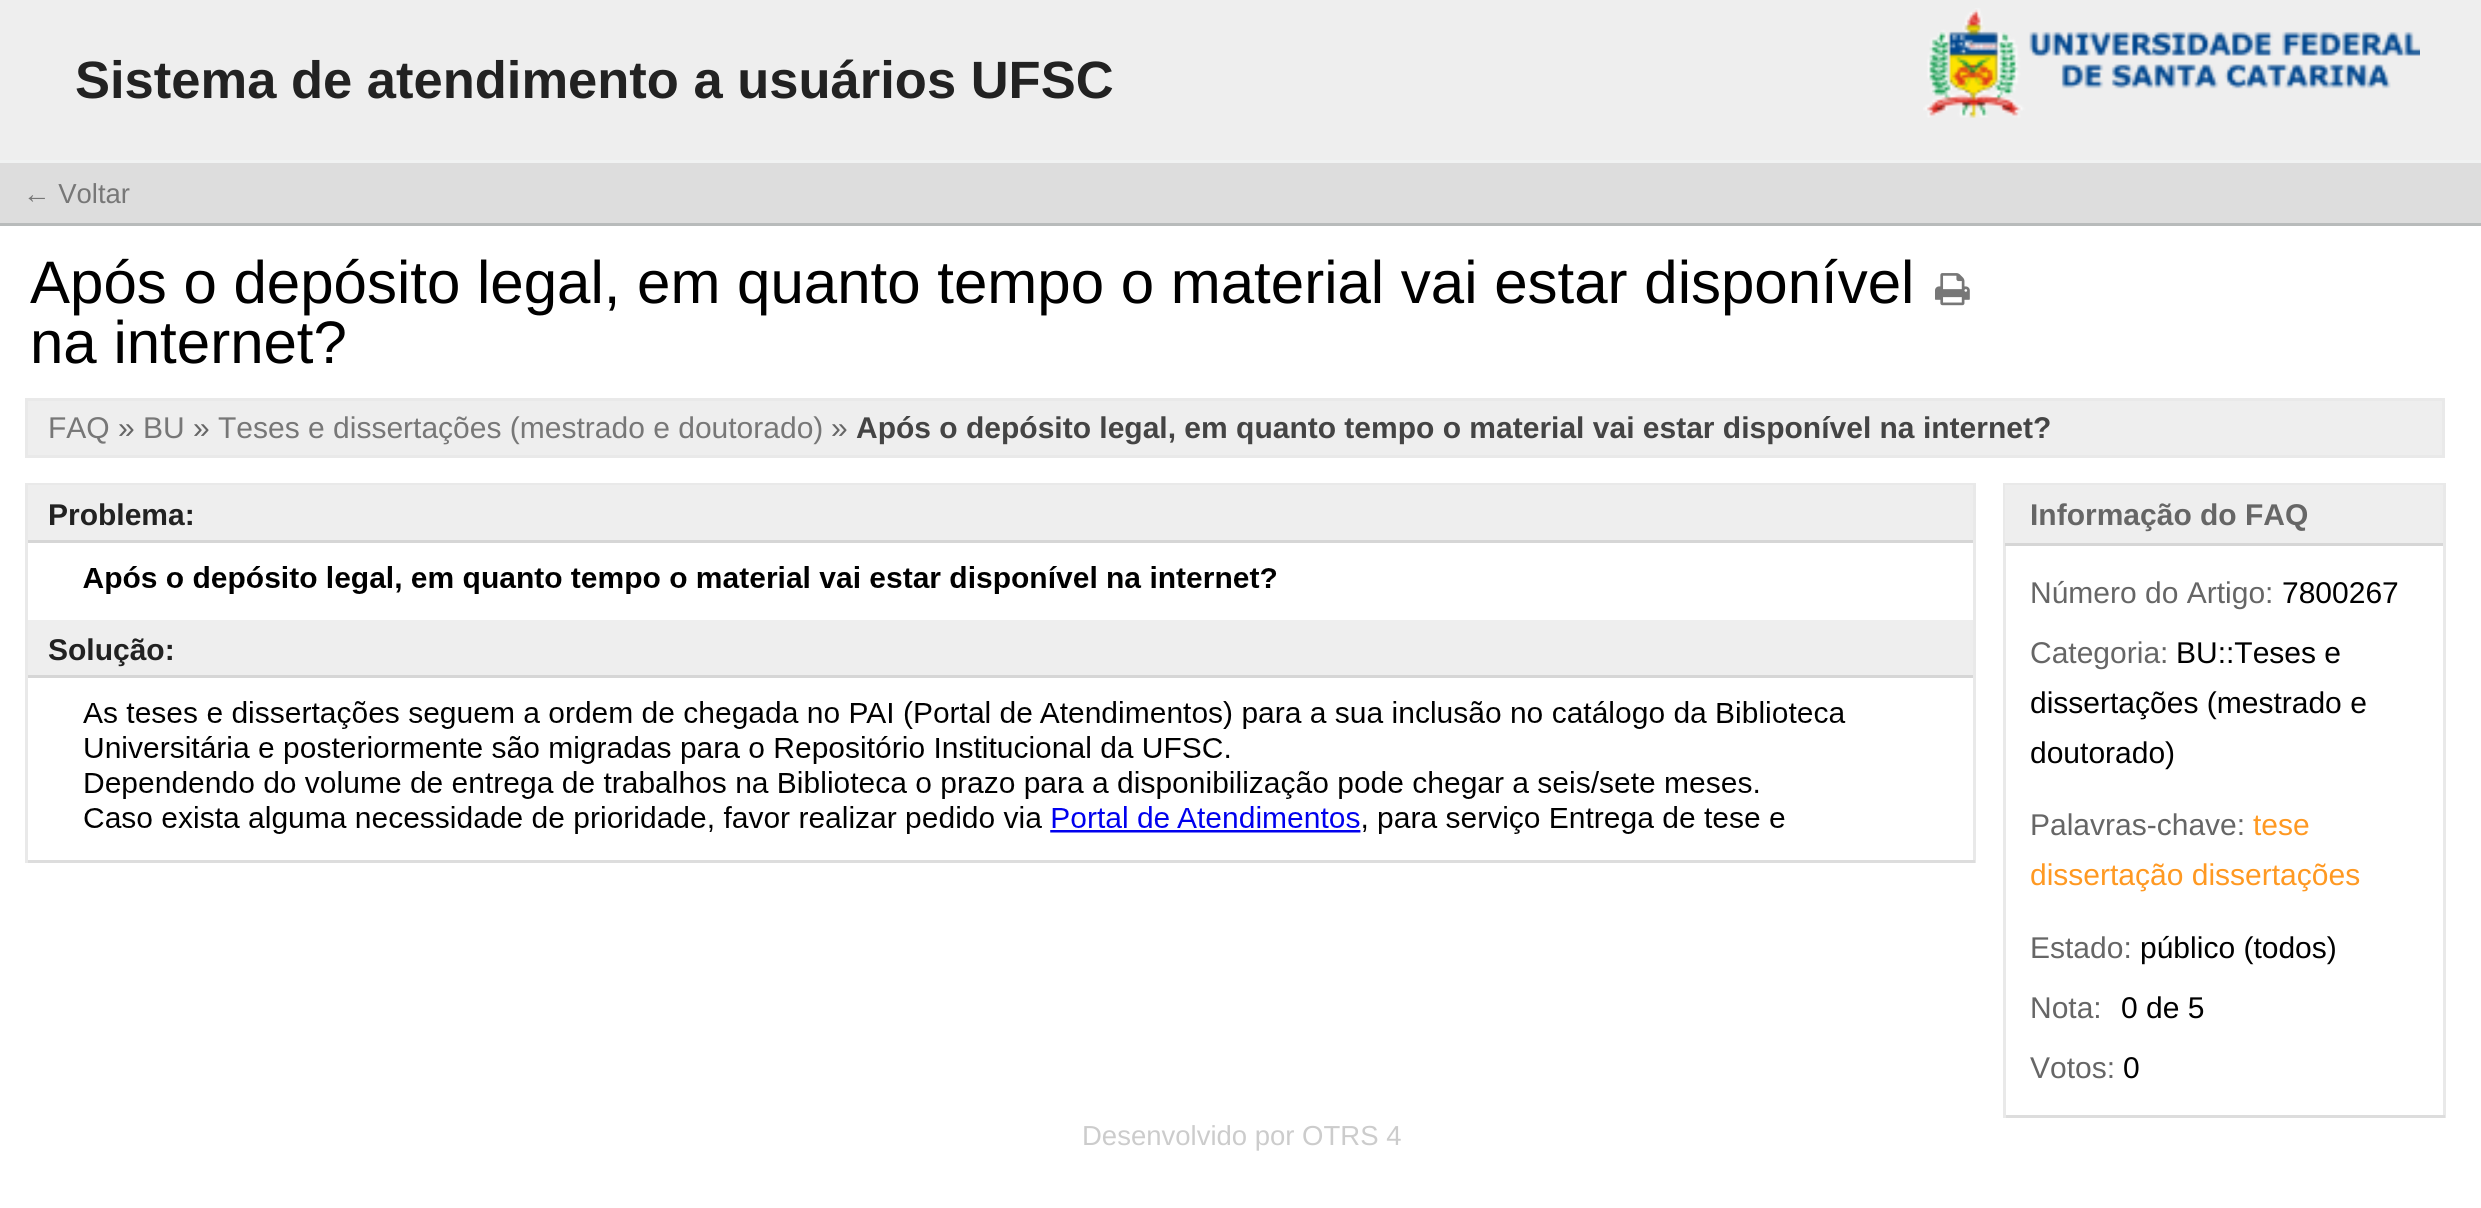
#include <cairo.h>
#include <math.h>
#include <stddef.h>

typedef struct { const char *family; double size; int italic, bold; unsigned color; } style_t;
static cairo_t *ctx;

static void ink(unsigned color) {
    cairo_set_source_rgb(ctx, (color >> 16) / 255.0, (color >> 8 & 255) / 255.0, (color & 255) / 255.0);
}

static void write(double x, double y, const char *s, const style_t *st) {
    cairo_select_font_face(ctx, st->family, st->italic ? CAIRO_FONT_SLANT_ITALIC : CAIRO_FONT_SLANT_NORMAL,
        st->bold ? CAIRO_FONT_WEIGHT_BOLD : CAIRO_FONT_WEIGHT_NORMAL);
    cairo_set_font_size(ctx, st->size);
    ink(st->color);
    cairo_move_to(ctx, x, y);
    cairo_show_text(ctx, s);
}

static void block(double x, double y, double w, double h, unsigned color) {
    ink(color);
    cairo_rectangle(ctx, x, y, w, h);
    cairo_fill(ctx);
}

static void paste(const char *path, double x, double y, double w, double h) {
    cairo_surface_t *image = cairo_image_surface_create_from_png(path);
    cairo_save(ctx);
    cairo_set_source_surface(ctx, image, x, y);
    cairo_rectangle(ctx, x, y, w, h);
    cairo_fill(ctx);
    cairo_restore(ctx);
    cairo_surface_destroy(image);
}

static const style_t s1 = {"Liberation Sans", 52.5, 0, 1, 0x222222};
static const style_t s2 = {"Liberation Sans", 27.5, 0, 0, 0x777777};
static const style_t s3 = {"Liberation Sans", 60, 0, 0, 0x000000};
static const style_t s4 = {"Liberation Sans", 30, 0, 0, 0x777777};
static const style_t s5 = {"Liberation Sans", 30, 0, 0, 0x666666};
static const style_t s6 = {"Liberation Sans", 30, 0, 1, 0x444444};
static const style_t s7 = {"Liberation Sans", 30, 0, 1, 0x222222};
static const style_t s8 = {"Liberation Sans", 30, 0, 1, 0x666666};
static const style_t s9 = {"Liberation Sans", 30, 0, 0, 0x000000};
static const style_t s10 = {"Liberation Sans", 30, 0, 0, 0xff9922};
static const style_t s11 = {"Liberation Sans", 27.5, 0, 0, 0xcccccc};

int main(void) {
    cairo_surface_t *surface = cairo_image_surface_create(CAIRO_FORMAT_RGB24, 2481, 1208);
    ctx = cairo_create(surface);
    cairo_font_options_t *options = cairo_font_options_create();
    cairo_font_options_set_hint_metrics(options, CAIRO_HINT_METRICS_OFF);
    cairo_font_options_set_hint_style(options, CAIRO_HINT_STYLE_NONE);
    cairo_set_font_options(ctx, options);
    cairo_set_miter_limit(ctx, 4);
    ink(0xffffff);
    cairo_paint(ctx);
    block(0, 0, 2481, 160, 0xeeeeee);
    write(75, 98, "Sistema de atendimento a usuários UFSC", &s1);
    paste("pic1.png", 1923, 8, 497, 110);
    block(0, 163, 2481, 60, 0xdddddd);
    block(0, 160, 2481, 3, 0xf0f2f2);
    block(0, 223, 2481, 3, 0xb8bbbb);
    write(23, 203, "← Voltar", &s2);
    write(30, 303, "Após o depósito legal, em quanto tempo o material vai estar disponível", &s3);
    write(30, 363, "na internet?", &s3);
    paste("pic2.png", 1935, 273, 35, 33);
    ink(0xeeeeee);
    cairo_rectangle(ctx, 26.5, 399.5, 2417, 57);
    cairo_fill_preserve(ctx);
    ink(0xe9e9e9);
    cairo_set_line_width(ctx, 3);
    cairo_stroke(ctx);
    write(48, 438, "FAQ", &s4);
    write(118, 438, "»", &s5);
    write(143, 438, "BU", &s4);
    write(193, 438, "»", &s5);
    write(218, 438, "Teses e dissertações (mestrado e doutorado)", &s4);
    write(831, 438, "»", &s5);
    write(856, 438, "Após o depósito legal, em quanto tempo o material vai estar disponível na internet?", &s6);
    block(25, 483, 1950, 2, 0xe9e9e9);
    block(1973, 483, 3, 380, 0xe9e9e9);
    block(25, 860, 1950, 3, 0xdddddd);
    block(25, 483, 3, 380, 0xe9e9e9);
    block(28, 485, 1945, 55, 0xeeeeee);
    block(28, 540, 1945, 3, 0xd6d6d6);
    write(48, 525, "Problema:", &s7);
    paste("pic3.png", 83, 566, 1194, 28);
    block(28, 620, 1945, 55, 0xeeeeee);
    block(28, 675, 1945, 3, 0xd6d6d6);
    write(48, 660, "Solução:", &s7);
    paste("pic4.png", 83, 701, 1763, 133);
    block(2003, 483, 442, 2, 0xe9e9e9);
    block(2443, 483, 3, 635, 0xe9e9e9);
    block(2003, 1115, 442, 3, 0xdddddd);
    block(2003, 483, 3, 635, 0xe9e9e9);
    block(2005, 485, 438, 58, 0xeeeeee);
    block(2005, 543, 438, 3, 0xd6d6d6);
    write(2030, 525, "Informação do FAQ", &s8);
    write(2030, 603, "Número do Artigo:", &s5);
    write(2282, 603, "7800267", &s9);
    write(2030, 663, "Categoria:", &s5);
    write(2176, 663, "BU::Teses e", &s9);
    write(2030, 713, "dissertações (mestrado e", &s9);
    write(2030, 763, "doutorado)", &s9);
    write(2030, 835, "Palavras-chave:", &s5);
    write(2253, 835, "tese", &s10);
    write(2030, 885, "dissertação dissertações", &s10);
    write(2030, 958, "Estado:", &s5);
    write(2140, 958, "público (todos)", &s9);
    write(2030, 1018, "Nota:", &s5);
    write(2121, 1018, "0 de 5", &s9);
    write(2030, 1078, "Votos:", &s5);
    write(2123, 1078, "0", &s9);
    write(1082, 1145, "Desenvolvido por OTRS 4", &s11);
    cairo_surface_write_to_png(surface, "screenshot.png");
    cairo_font_options_destroy(options);
    cairo_destroy(ctx);
    cairo_surface_destroy(surface);
    return 0;
}
